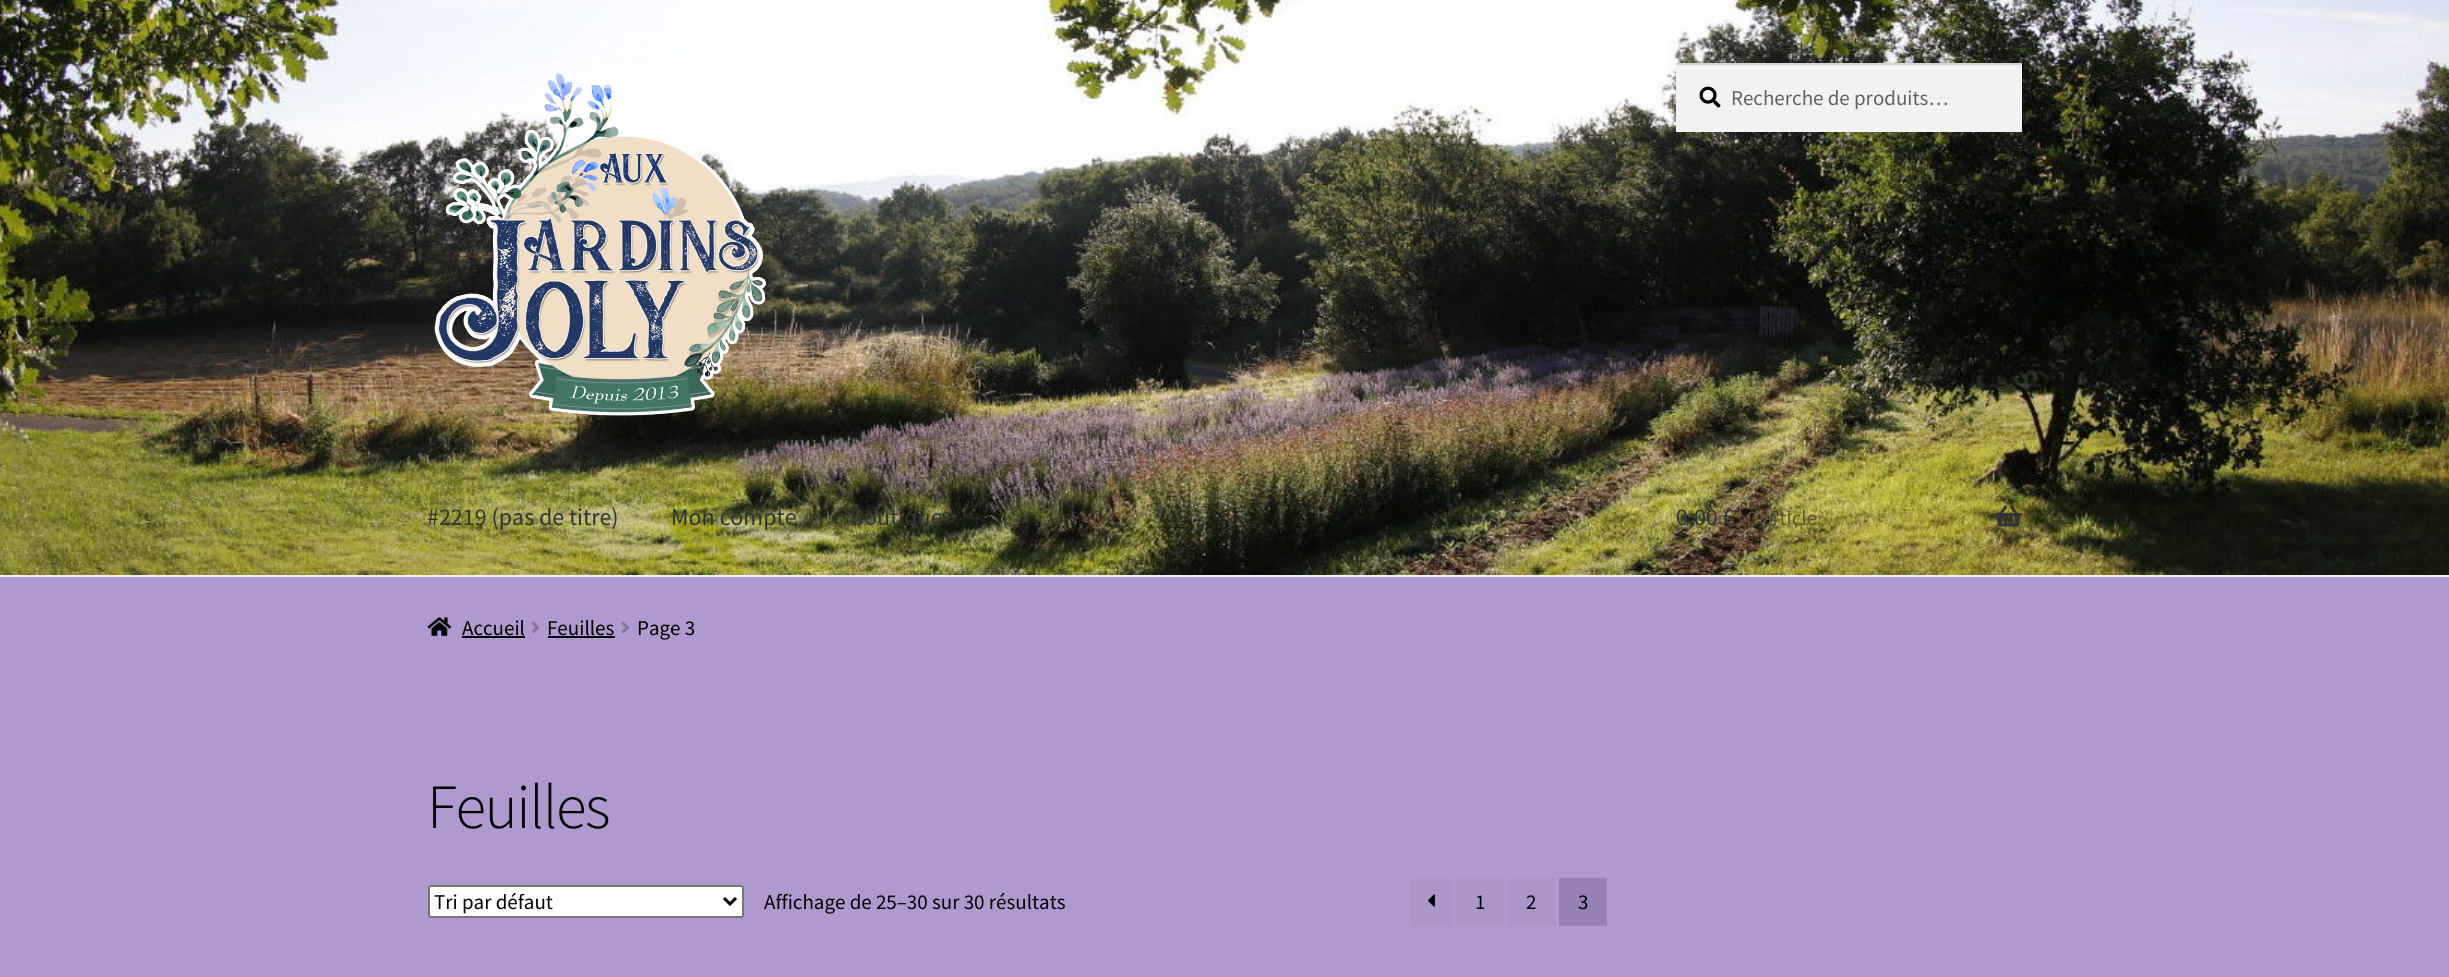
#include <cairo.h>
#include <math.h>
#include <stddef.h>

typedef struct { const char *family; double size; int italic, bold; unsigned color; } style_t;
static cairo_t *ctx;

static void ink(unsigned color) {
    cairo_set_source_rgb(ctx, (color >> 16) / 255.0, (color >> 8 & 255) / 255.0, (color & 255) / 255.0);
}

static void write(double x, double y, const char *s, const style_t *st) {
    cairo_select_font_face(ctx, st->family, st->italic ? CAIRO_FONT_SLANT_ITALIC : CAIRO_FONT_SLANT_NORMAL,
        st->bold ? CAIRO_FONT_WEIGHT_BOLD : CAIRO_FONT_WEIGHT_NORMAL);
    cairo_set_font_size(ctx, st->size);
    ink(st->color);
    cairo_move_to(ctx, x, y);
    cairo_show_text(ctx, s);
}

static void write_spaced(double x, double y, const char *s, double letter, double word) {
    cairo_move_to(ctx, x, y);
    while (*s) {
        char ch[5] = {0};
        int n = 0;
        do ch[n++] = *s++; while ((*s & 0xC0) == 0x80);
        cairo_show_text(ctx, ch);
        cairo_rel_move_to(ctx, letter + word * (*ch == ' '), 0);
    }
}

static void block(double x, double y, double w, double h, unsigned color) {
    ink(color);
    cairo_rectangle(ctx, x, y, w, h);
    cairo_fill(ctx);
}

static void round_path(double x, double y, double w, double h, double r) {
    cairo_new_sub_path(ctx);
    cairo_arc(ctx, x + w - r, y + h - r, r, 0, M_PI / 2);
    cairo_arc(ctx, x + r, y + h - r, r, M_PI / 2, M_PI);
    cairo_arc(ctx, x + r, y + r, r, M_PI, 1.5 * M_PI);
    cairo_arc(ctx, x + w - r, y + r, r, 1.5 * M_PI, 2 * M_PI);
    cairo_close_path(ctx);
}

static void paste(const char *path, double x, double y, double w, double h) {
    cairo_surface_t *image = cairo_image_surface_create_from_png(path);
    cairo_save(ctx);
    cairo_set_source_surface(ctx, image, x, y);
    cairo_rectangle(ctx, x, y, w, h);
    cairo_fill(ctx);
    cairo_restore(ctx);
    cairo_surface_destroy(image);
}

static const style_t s1 = {"Source Sans Pro", 21, 0, 0, 0x616161};
static const style_t s2 = {"Source Sans Pro", 24, 0, 0, 0x333333};
static const style_t s3 = {"Source Sans Pro", 21, 0, 0, 0x595537};
static const style_t s4 = {"Source Sans Pro", 21, 0, 0, 0x000000};

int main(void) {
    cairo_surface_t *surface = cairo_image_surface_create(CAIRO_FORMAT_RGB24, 2449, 977);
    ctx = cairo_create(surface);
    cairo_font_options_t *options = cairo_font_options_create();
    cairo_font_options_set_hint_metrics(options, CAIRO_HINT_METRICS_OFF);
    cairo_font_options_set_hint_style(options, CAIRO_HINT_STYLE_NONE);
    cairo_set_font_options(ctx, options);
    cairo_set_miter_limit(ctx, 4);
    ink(0xb099ce);
    cairo_paint(ctx);
    paste("pic1.png", 0, 0, 2449, 575);
    block(0, 575, 2449, 2, 0xf0f0f0);
    paste("pic2.png", 434, 73, 332, 343);
    block(1676, 65, 346, 67, 0xf2f2f2);
    paste("pic3.png", 1699, 86, 22, 22);
    block(1676, 63, 346, 2, 0xd4d4d4);
    write(1731, 105, "Recherche de produits…", &s1);
    write(427, 525, "#2219 (pas de titre)", &s2);
    write(671, 525, "Mon compte", &s2);
    write(850, 525, "Boutique", &s2);
    write(1676, 525, "0,00 €", &s2);
    write(1747, 525, "0 article", &s3);
    paste("pic4.png", 1995, 505, 27, 22);
    paste("pic5.png", 427, 617, 25, 19);
    write(462, 635, "Accueil", &s4);
    block(462, 636, 63, 2, 0x050505);
    paste("pic6.png", 531, 621, 8, 12);
    write(547, 635, "Feuilles", &s4);
    block(548, 636, 67, 2, 0x050505);
    paste("pic6.png", 621, 621, 8, 12);
    write(637, 635, "Page 3", &s4);
    cairo_select_font_face(ctx, "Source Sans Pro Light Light", CAIRO_FONT_SLANT_NORMAL, CAIRO_FONT_WEIGHT_NORMAL);
    cairo_set_font_size(ctx, 63);
    write_spaced(427, 828, "Feuilles", -1.5, 0);
    ink(0xffffff);
    round_path(429, 886, 314, 31, 2);
    cairo_fill_preserve(ctx);
    ink(0x767676);
    cairo_stroke(ctx);
    cairo_new_path(ctx);
    cairo_move_to(ctx, 724, 898);
    cairo_line_to(ctx, 730, 904);
    cairo_line_to(ctx, 736, 898);
    ink(0x000000);
    cairo_set_line_width(ctx, 3);
    cairo_stroke(ctx);
    write(434, 909, "Tri par défaut", &s4);
    write(764, 909, "Affichage de 25–30 sur 30 résultats", &s4);
    block(1410, 878, 42, 48, 0xac95c9);
    paste("pic7.png", 1428, 894, 7, 13);
    block(1457, 878, 46, 48, 0xac95c9);
    write(1475, 909, "1", &s4);
    block(1508, 878, 48, 48, 0xac95c9);
    write(1526, 909, "2", &s4);
    block(1559, 878, 48, 48, 0x9780b5);
    write(1578, 909, "3", &s4);
    cairo_surface_write_to_png(surface, "screenshot.png");
    cairo_font_options_destroy(options);
    cairo_destroy(ctx);
    cairo_surface_destroy(surface);
    return 0;
}
